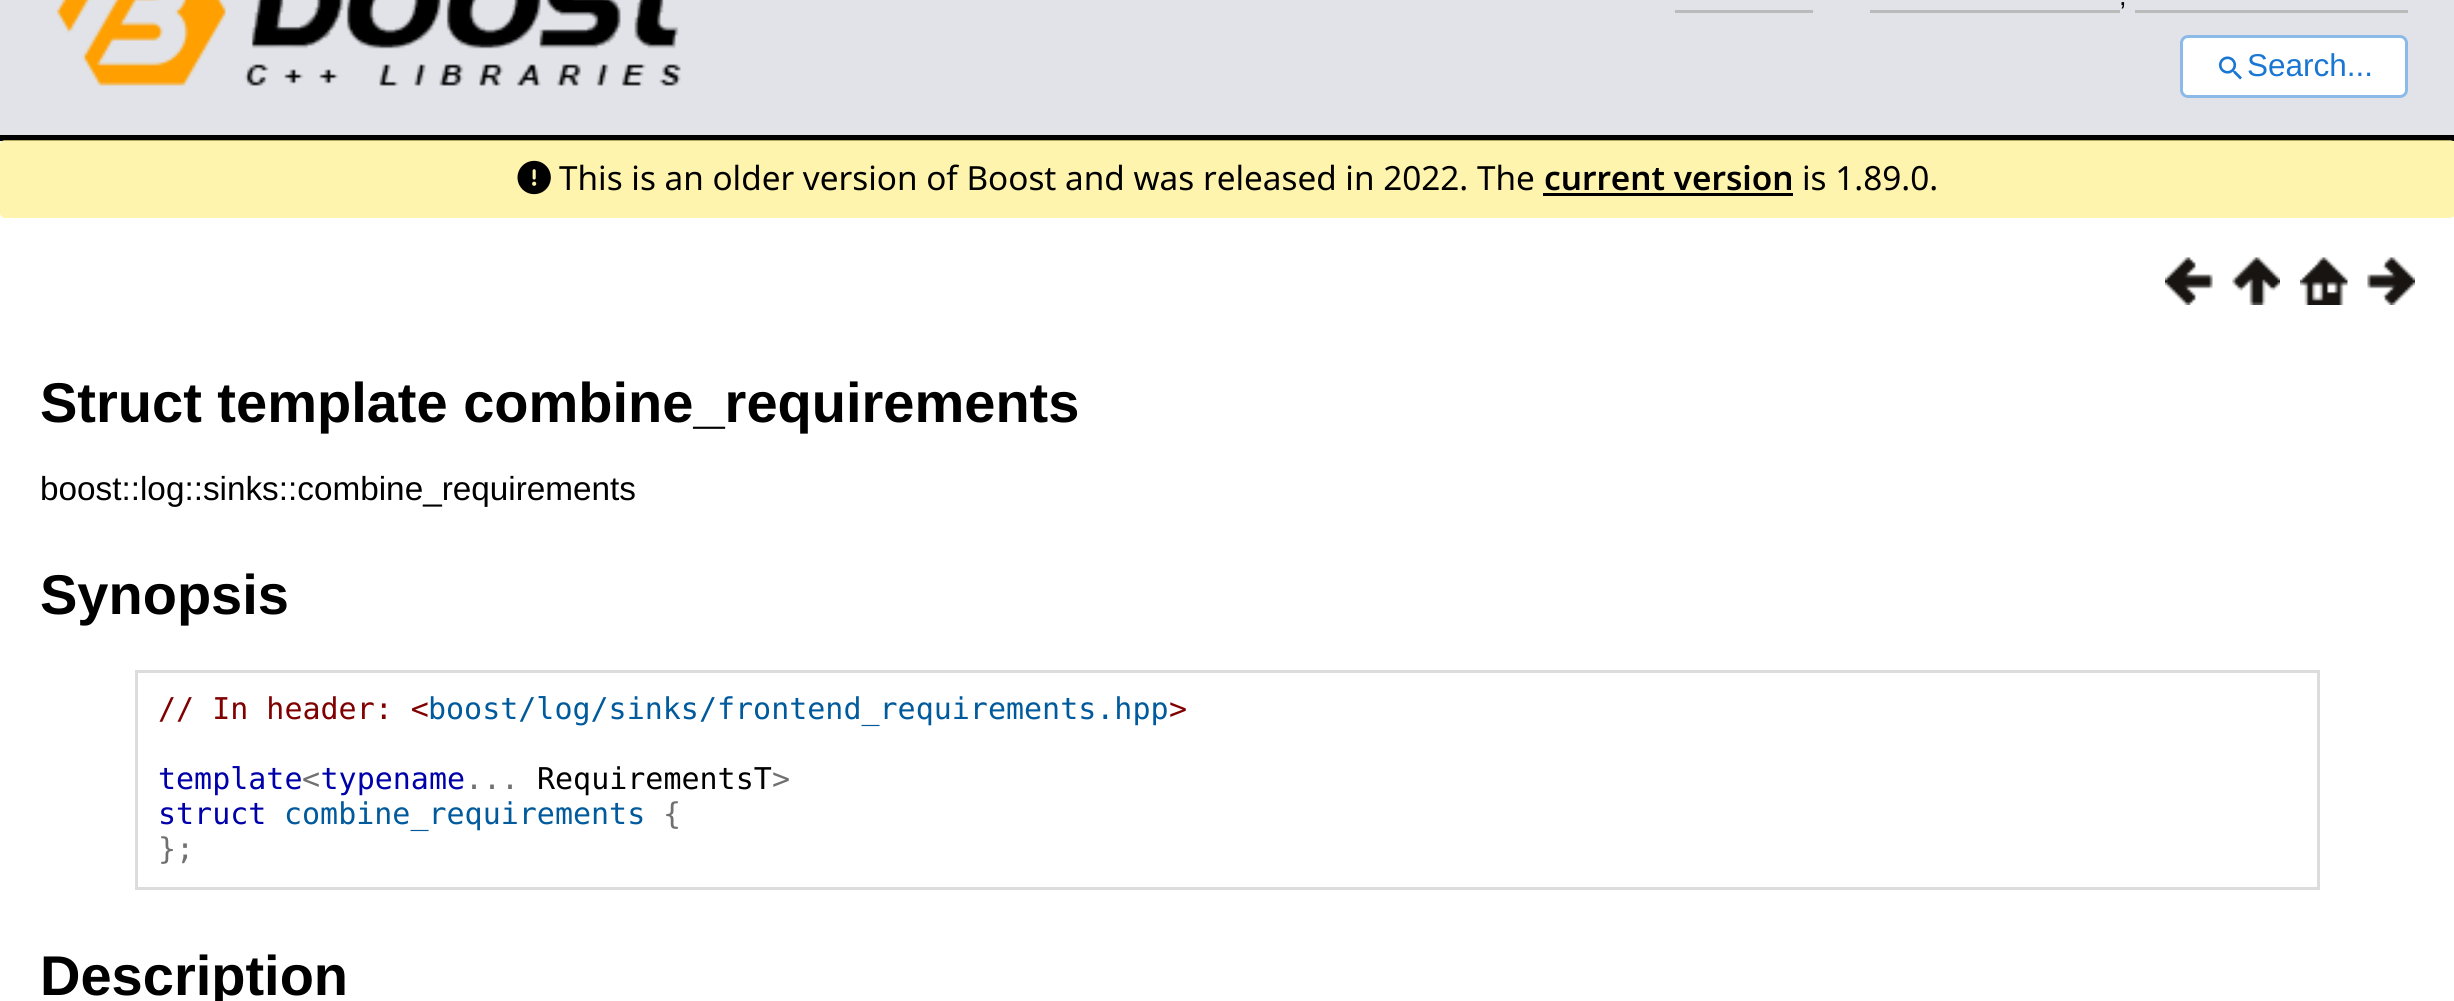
#include <cairo.h>
#include <math.h>
#include <stddef.h>

typedef struct { const char *family; double size; int italic, bold; unsigned color; } style_t;
static cairo_t *ctx;

static void ink(unsigned color) {
    cairo_set_source_rgb(ctx, (color >> 16) / 255.0, (color >> 8 & 255) / 255.0, (color & 255) / 255.0);
}

static void write(double x, double y, const char *s, const style_t *st) {
    cairo_select_font_face(ctx, st->family, st->italic ? CAIRO_FONT_SLANT_ITALIC : CAIRO_FONT_SLANT_NORMAL,
        st->bold ? CAIRO_FONT_WEIGHT_BOLD : CAIRO_FONT_WEIGHT_NORMAL);
    cairo_set_font_size(ctx, st->size);
    ink(st->color);
    cairo_move_to(ctx, x, y);
    cairo_show_text(ctx, s);
}

static void block(double x, double y, double w, double h, unsigned color) {
    ink(color);
    cairo_rectangle(ctx, x, y, w, h);
    cairo_fill(ctx);
}

static void round_path(double x, double y, double w, double h, double r) {
    cairo_new_sub_path(ctx);
    cairo_arc(ctx, x + w - r, y + h - r, r, 0, M_PI / 2);
    cairo_arc(ctx, x + r, y + h - r, r, M_PI / 2, M_PI);
    cairo_arc(ctx, x + r, y + r, r, M_PI, 1.5 * M_PI);
    cairo_arc(ctx, x + w - r, y + r, r, 1.5 * M_PI, 2 * M_PI);
    cairo_close_path(ctx);
}

static void paste(const char *path, double x, double y, double w, double h) {
    cairo_surface_t *image = cairo_image_surface_create_from_png(path);
    cairo_save(ctx);
    cairo_set_source_surface(ctx, image, x, y);
    cairo_rectangle(ctx, x, y, w, h);
    cairo_fill(ctx);
    cairo_restore(ctx);
    cairo_surface_destroy(image);
}

static const style_t s1 = {"Liberation Sans", 27, 0, 0, 0x000000};
static const style_t s2 = {"Liberation Sans", 31.5, 0, 0, 0x1976d2};
static const style_t s3 = {"Noto Sans", 33.3, 0, 0, 0x000000};
static const style_t s4 = {"Noto Sans SemiBold", 33.3, 0, 0, 0x000000};
static const style_t s5 = {"Liberation Sans", 56, 0, 1, 0x000000};
static const style_t s6 = {"Liberation Sans", 33.3, 0, 0, 0x000000};
static const style_t s7 = {"DejaVu Sans Mono", 30, 0, 0, 0x800000};
static const style_t s8 = {"DejaVu Sans Mono", 30, 0, 0, 0x005a9c};
static const style_t s9 = {"DejaVu Sans Mono", 30, 0, 0, 0x0000aa};
static const style_t s10 = {"DejaVu Sans Mono", 30, 0, 0, 0x000000};
static const style_t s11 = {"DejaVu Sans Mono", 30, 0, 0, 0x707070};

int main(void) {
    cairo_surface_t *surface = cairo_image_surface_create(CAIRO_FORMAT_RGB24, 2454, 1001);
    ctx = cairo_create(surface);
    cairo_font_options_t *options = cairo_font_options_create();
    cairo_font_options_set_hint_metrics(options, CAIRO_HINT_METRICS_OFF);
    cairo_font_options_set_hint_style(options, CAIRO_HINT_STYLE_NONE);
    cairo_set_font_options(ctx, options);
    cairo_set_miter_limit(ctx, 4);
    ink(0xffffff);
    cairo_paint(ctx);
    block(0, 0, 2454, 135, 0xe1e3e8);
    block(0, 135, 2454, 6, 0x000000);
    paste("pic1.png", 56, 0, 625, 86);
    write(2119, 5, ",", &s1);
    block(1675, 10, 138, 3, 0xbbbbbb);
    block(1870, 10, 250, 3, 0xbbbbbb);
    block(2135, 10, 273, 3, 0xbbbbbb);
    ink(0xffffff);
    round_path(2180, 35, 228, 63, 8);
    cairo_fill(ctx);
    round_path(2181.5, 36.5, 225, 60, 6.5);
    cairo_set_source_rgba(ctx, 0.098, 0.463, 0.824, 0.5);
    cairo_set_line_width(ctx, 3);
    cairo_stroke(ctx);
    paste("pic2.png", 2219, 56, 23, 24);
    write(2247, 76, "Search...", &s2);
    cairo_set_source_rgba(ctx, 0.996, 0.941, 0.545, 0.7);
    round_path(0, 140, 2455, 78, 5);
    cairo_fill(ctx);
    paste("pic3.png", 517, 160, 34, 35);
    write(559, 190, "This is an older version of Boost and was released in 2022.", &s3);
    write(1477, 190, "The", &s3);
    write(1544, 190, "current version", &s4);
    block(1543, 193, 250, 3, 0x000000);
    write(1802, 190, "is 1.89.0.", &s3);
    paste("pic4.png", 2165, 257, 48, 48);
    paste("pic5.png", 2232, 257, 48, 48);
    paste("pic6.png", 2300, 257, 48, 48);
    paste("pic7.png", 2367, 257, 48, 48);
    write(40, 422, "Struct template combine_requirements", &s5);
    write(40, 500, "boost::log::sinks::combine_requirements", &s6);
    write(40, 614, "Synopsis", &s5);
    cairo_rectangle(ctx, 136.5, 671.5, 2182, 217);
    ink(0xdcdcdc);
    cairo_stroke(ctx);
    write(158, 719, "// In header: <", &s7);
    write(428, 719, "boost/log/sinks/frontend_requirements.hpp", &s8);
    write(1169, 719, ">", &s7);
    write(158, 789, "template typename", &s9);
    write(537, 789, "RequirementsT", &s10);
    write(302, 789, "<", &s11);
    write(465, 789, "...", &s11);
    write(772, 789, ">", &s11);
    write(158, 824, "struct", &s9);
    write(284, 824, "combine_requirements", &s8);
    write(663, 824, "{", &s11);
    write(158, 859, "};", &s11);
    write(40, 995, "Description", &s5);
    cairo_surface_write_to_png(surface, "screenshot.png");
    cairo_font_options_destroy(options);
    cairo_destroy(ctx);
    cairo_surface_destroy(surface);
    return 0;
}
